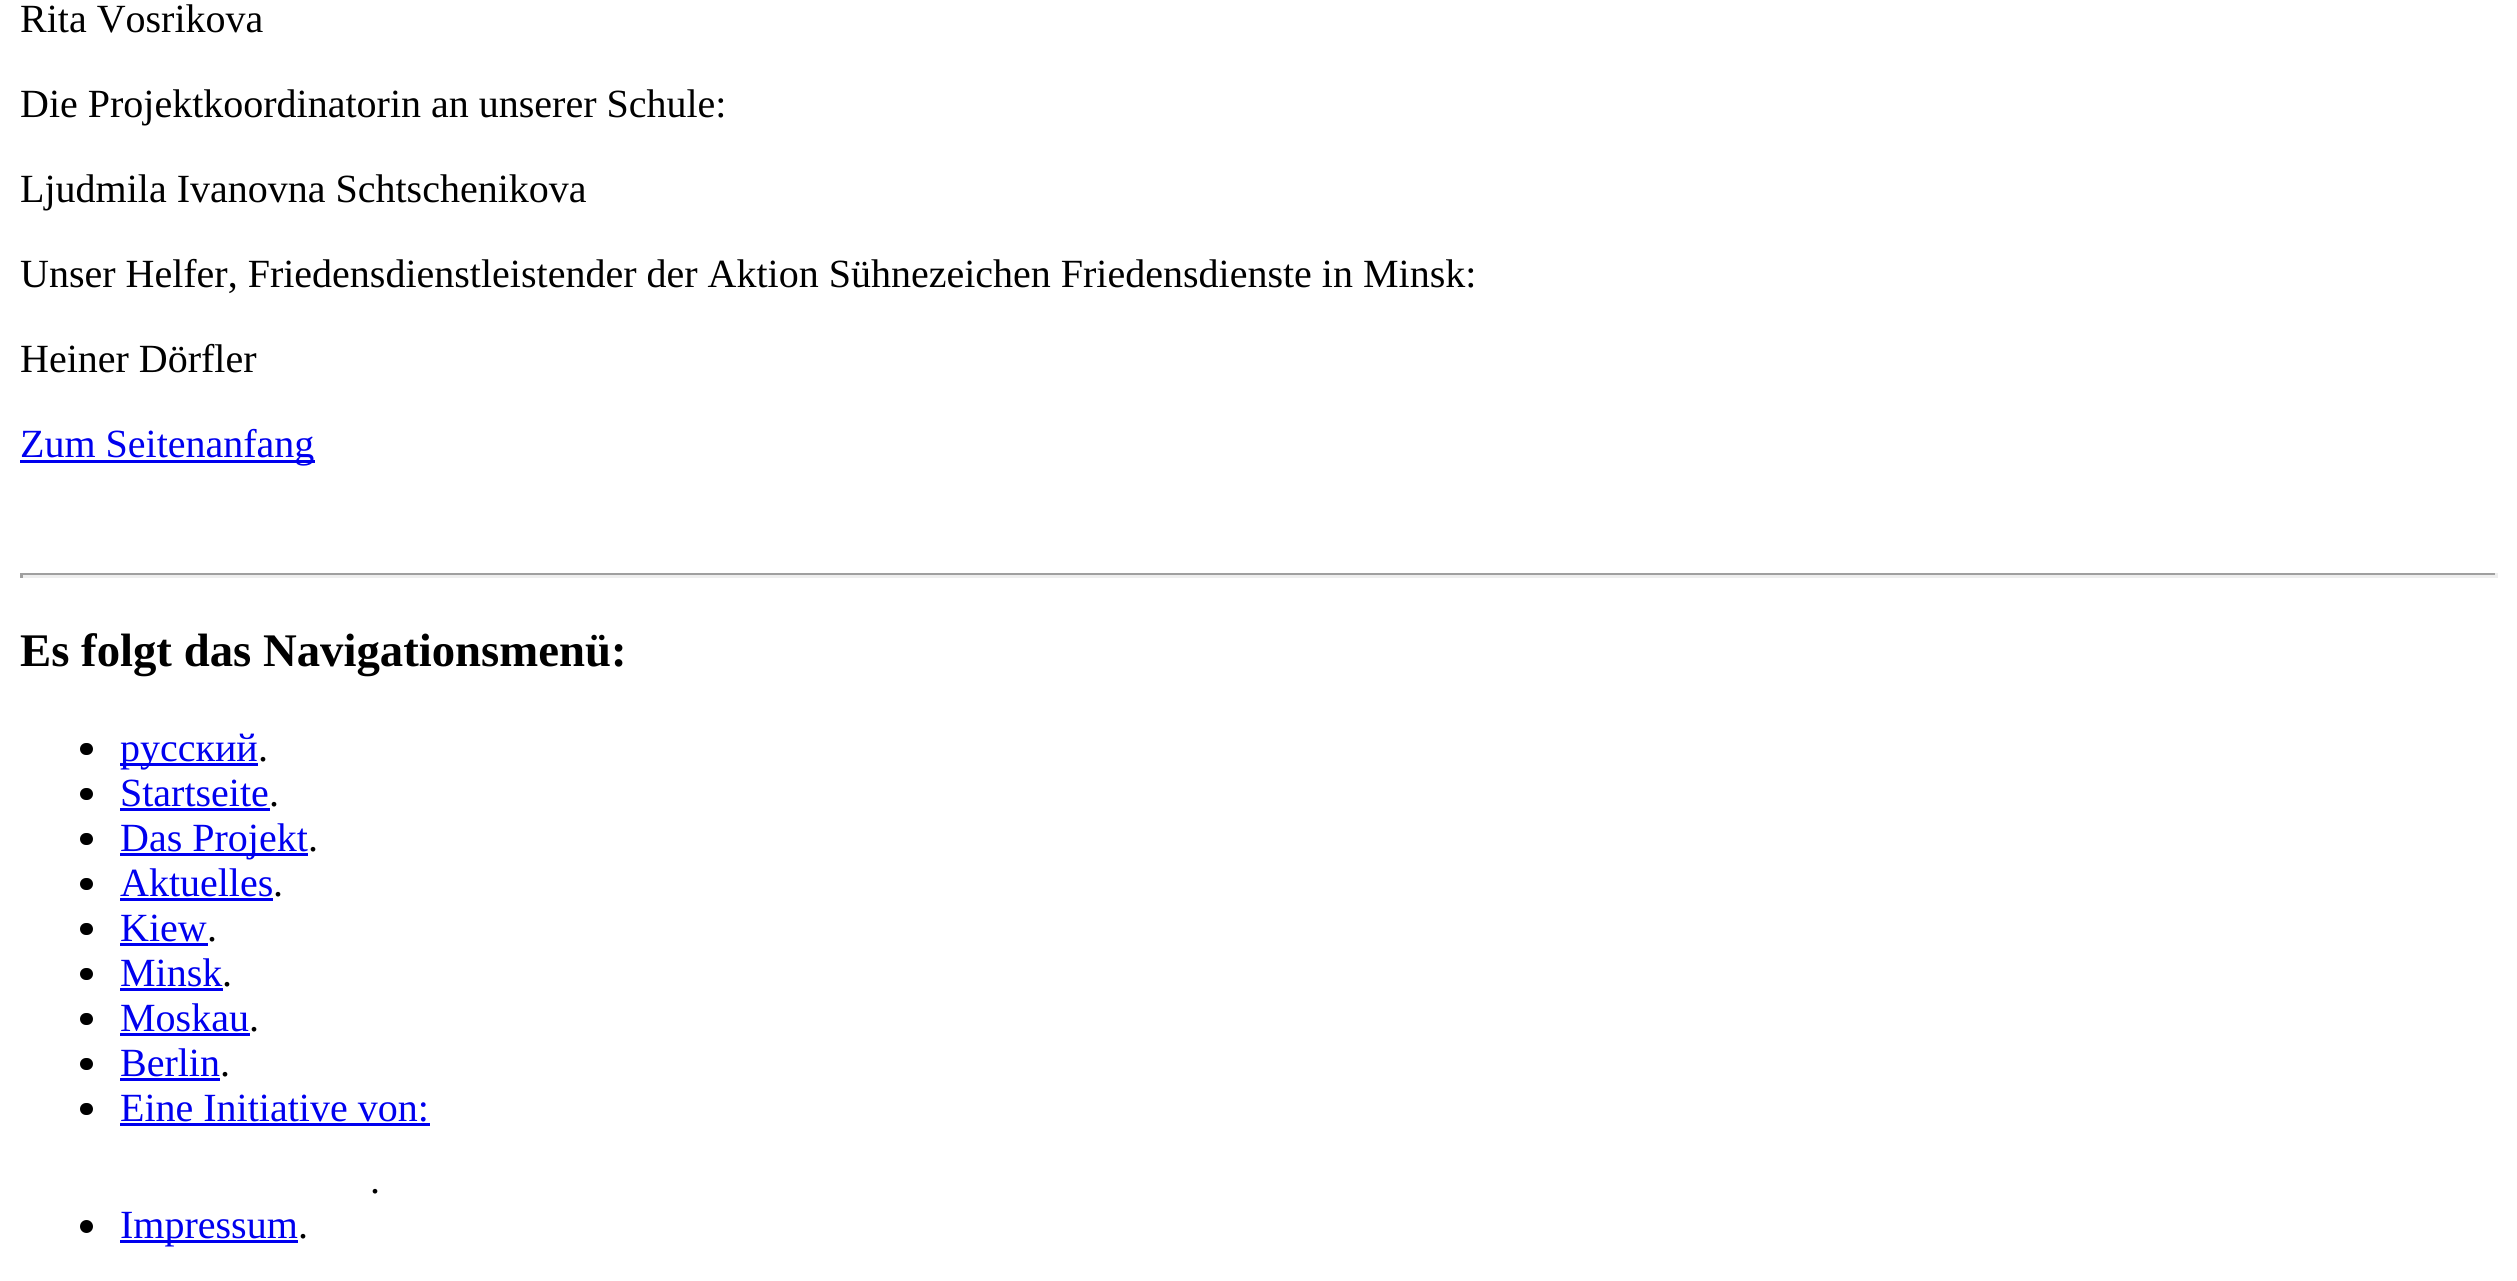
#include <cairo.h>
#include <math.h>
#include <stddef.h>

typedef struct { const char *family; double size; int italic, bold; unsigned color; } style_t;
static cairo_t *ctx;

static void ink(unsigned color) {
    cairo_set_source_rgb(ctx, (color >> 16) / 255.0, (color >> 8 & 255) / 255.0, (color & 255) / 255.0);
}

static void write(double x, double y, const char *s, const style_t *st) {
    cairo_select_font_face(ctx, st->family, st->italic ? CAIRO_FONT_SLANT_ITALIC : CAIRO_FONT_SLANT_NORMAL,
        st->bold ? CAIRO_FONT_WEIGHT_BOLD : CAIRO_FONT_WEIGHT_NORMAL);
    cairo_set_font_size(ctx, st->size);
    ink(st->color);
    cairo_move_to(ctx, x, y);
    cairo_show_text(ctx, s);
}

static void block(double x, double y, double w, double h, unsigned color) {
    ink(color);
    cairo_rectangle(ctx, x, y, w, h);
    cairo_fill(ctx);
}

static void round_path(double x, double y, double w, double h, double r) {
    cairo_new_sub_path(ctx);
    cairo_arc(ctx, x + w - r, y + h - r, r, 0, M_PI / 2);
    cairo_arc(ctx, x + r, y + h - r, r, M_PI / 2, M_PI);
    cairo_arc(ctx, x + r, y + r, r, M_PI, 1.5 * M_PI);
    cairo_arc(ctx, x + w - r, y + r, r, 1.5 * M_PI, 2 * M_PI);
    cairo_close_path(ctx);
}

static const style_t s1 = {"Liberation Serif", 40, 0, 0, 0x000000};
static const style_t s2 = {"Liberation Serif", 40, 0, 0, 0x0000ee};
static const style_t s3 = {"Liberation Serif", 46.75, 0, 1, 0x000000};

int main(void) {
    cairo_surface_t *surface = cairo_image_surface_create(CAIRO_FORMAT_RGB24, 2517, 1281);
    ctx = cairo_create(surface);
    cairo_font_options_t *options = cairo_font_options_create();
    cairo_font_options_set_hint_metrics(options, CAIRO_HINT_METRICS_OFF);
    cairo_font_options_set_hint_style(options, CAIRO_HINT_STYLE_NONE);
    cairo_set_font_options(ctx, options);
    cairo_set_miter_limit(ctx, 4);
    ink(0xffffff);
    cairo_paint(ctx);
    write(20, 32, "Rita Vosrikova", &s1);
    write(20, 117, "Die Projektkoordinatorin an unserer Schule:", &s1);
    write(20, 202, "Ljudmila Ivanovna Schtschenikova", &s1);
    write(20, 287, "Unser Helfer, Friedensdienstleistender der Aktion Sühnezeichen Friedensdienste in Minsk:", &s1);
    write(20, 372, "Heiner Dörfler", &s1);
    block(20, 460, 295, 3, 0x0000ee);
    write(20, 457, "Zum Seitenanfang", &s2);
    block(20, 573, 2478, 2, 0x9f9f9f);
    block(2495, 573, 3, 5, 0xeeeeee);
    block(20, 575, 2478, 3, 0xeeeeee);
    block(20, 573, 3, 5, 0x9f9f9f);
    write(20, 666, "Es folgt das Navigationsmenü:", &s3);
    round_path(80, 743, 13, 12, 6);
    cairo_fill(ctx);
    block(120, 763, 138, 3, 0x0000ee);
    write(120, 761, "русский", &s2);
    write(258, 761, ".", &s1);
    round_path(80, 788, 13, 12, 6);
    cairo_fill(ctx);
    write(120, 806, "Startseite", &s2);
    block(120, 808, 150, 3, 0x0000ee);
    write(269, 806, ".", &s1);
    round_path(80, 833, 13, 12, 6);
    cairo_fill(ctx);
    block(120, 853, 188, 3, 0x0000ee);
    write(120, 851, "Das Projekt", &s2);
    write(308, 851, ".", &s1);
    round_path(80, 878, 13, 12, 6);
    cairo_fill(ctx);
    write(120, 896, "Aktuelles", &s2);
    block(120, 898, 153, 3, 0x0000ee);
    write(273, 896, ".", &s1);
    round_path(80, 923, 13, 12, 6);
    cairo_fill(ctx);
    write(120, 941, "Kiew", &s2);
    block(120, 943, 88, 3, 0x0000ee);
    write(207, 941, ".", &s1);
    round_path(80, 968, 13, 12, 6);
    cairo_fill(ctx);
    write(120, 986, "Minsk", &s2);
    block(120, 988, 103, 3, 0x0000ee);
    write(222, 986, ".", &s1);
    round_path(80, 1013, 13, 12, 6);
    cairo_fill(ctx);
    write(120, 1031, "Moskau", &s2);
    block(120, 1033, 130, 3, 0x0000ee);
    write(249, 1031, ".", &s1);
    round_path(80, 1058, 13, 12, 6);
    cairo_fill(ctx);
    write(120, 1076, "Berlin", &s2);
    block(120, 1078, 100, 3, 0x0000ee);
    write(220, 1076, ".", &s1);
    round_path(80, 1103, 13, 12, 6);
    cairo_fill(ctx);
    write(120, 1121, "Eine Initiative von:", &s2);
    block(120, 1123, 310, 3, 0x0000ee);
    write(370, 1193, ".", &s1);
    cairo_new_path(ctx);
    cairo_arc(ctx, 86.5, 1226.5, 6.5, 0, 2 * M_PI);
    cairo_fill(ctx);
    block(120, 1240, 178, 3, 0x0000ee);
    write(120, 1238, "Impressum", &s2);
    write(298, 1238, ".", &s1);
    cairo_surface_write_to_png(surface, "screenshot.png");
    cairo_font_options_destroy(options);
    cairo_destroy(ctx);
    cairo_surface_destroy(surface);
    return 0;
}
